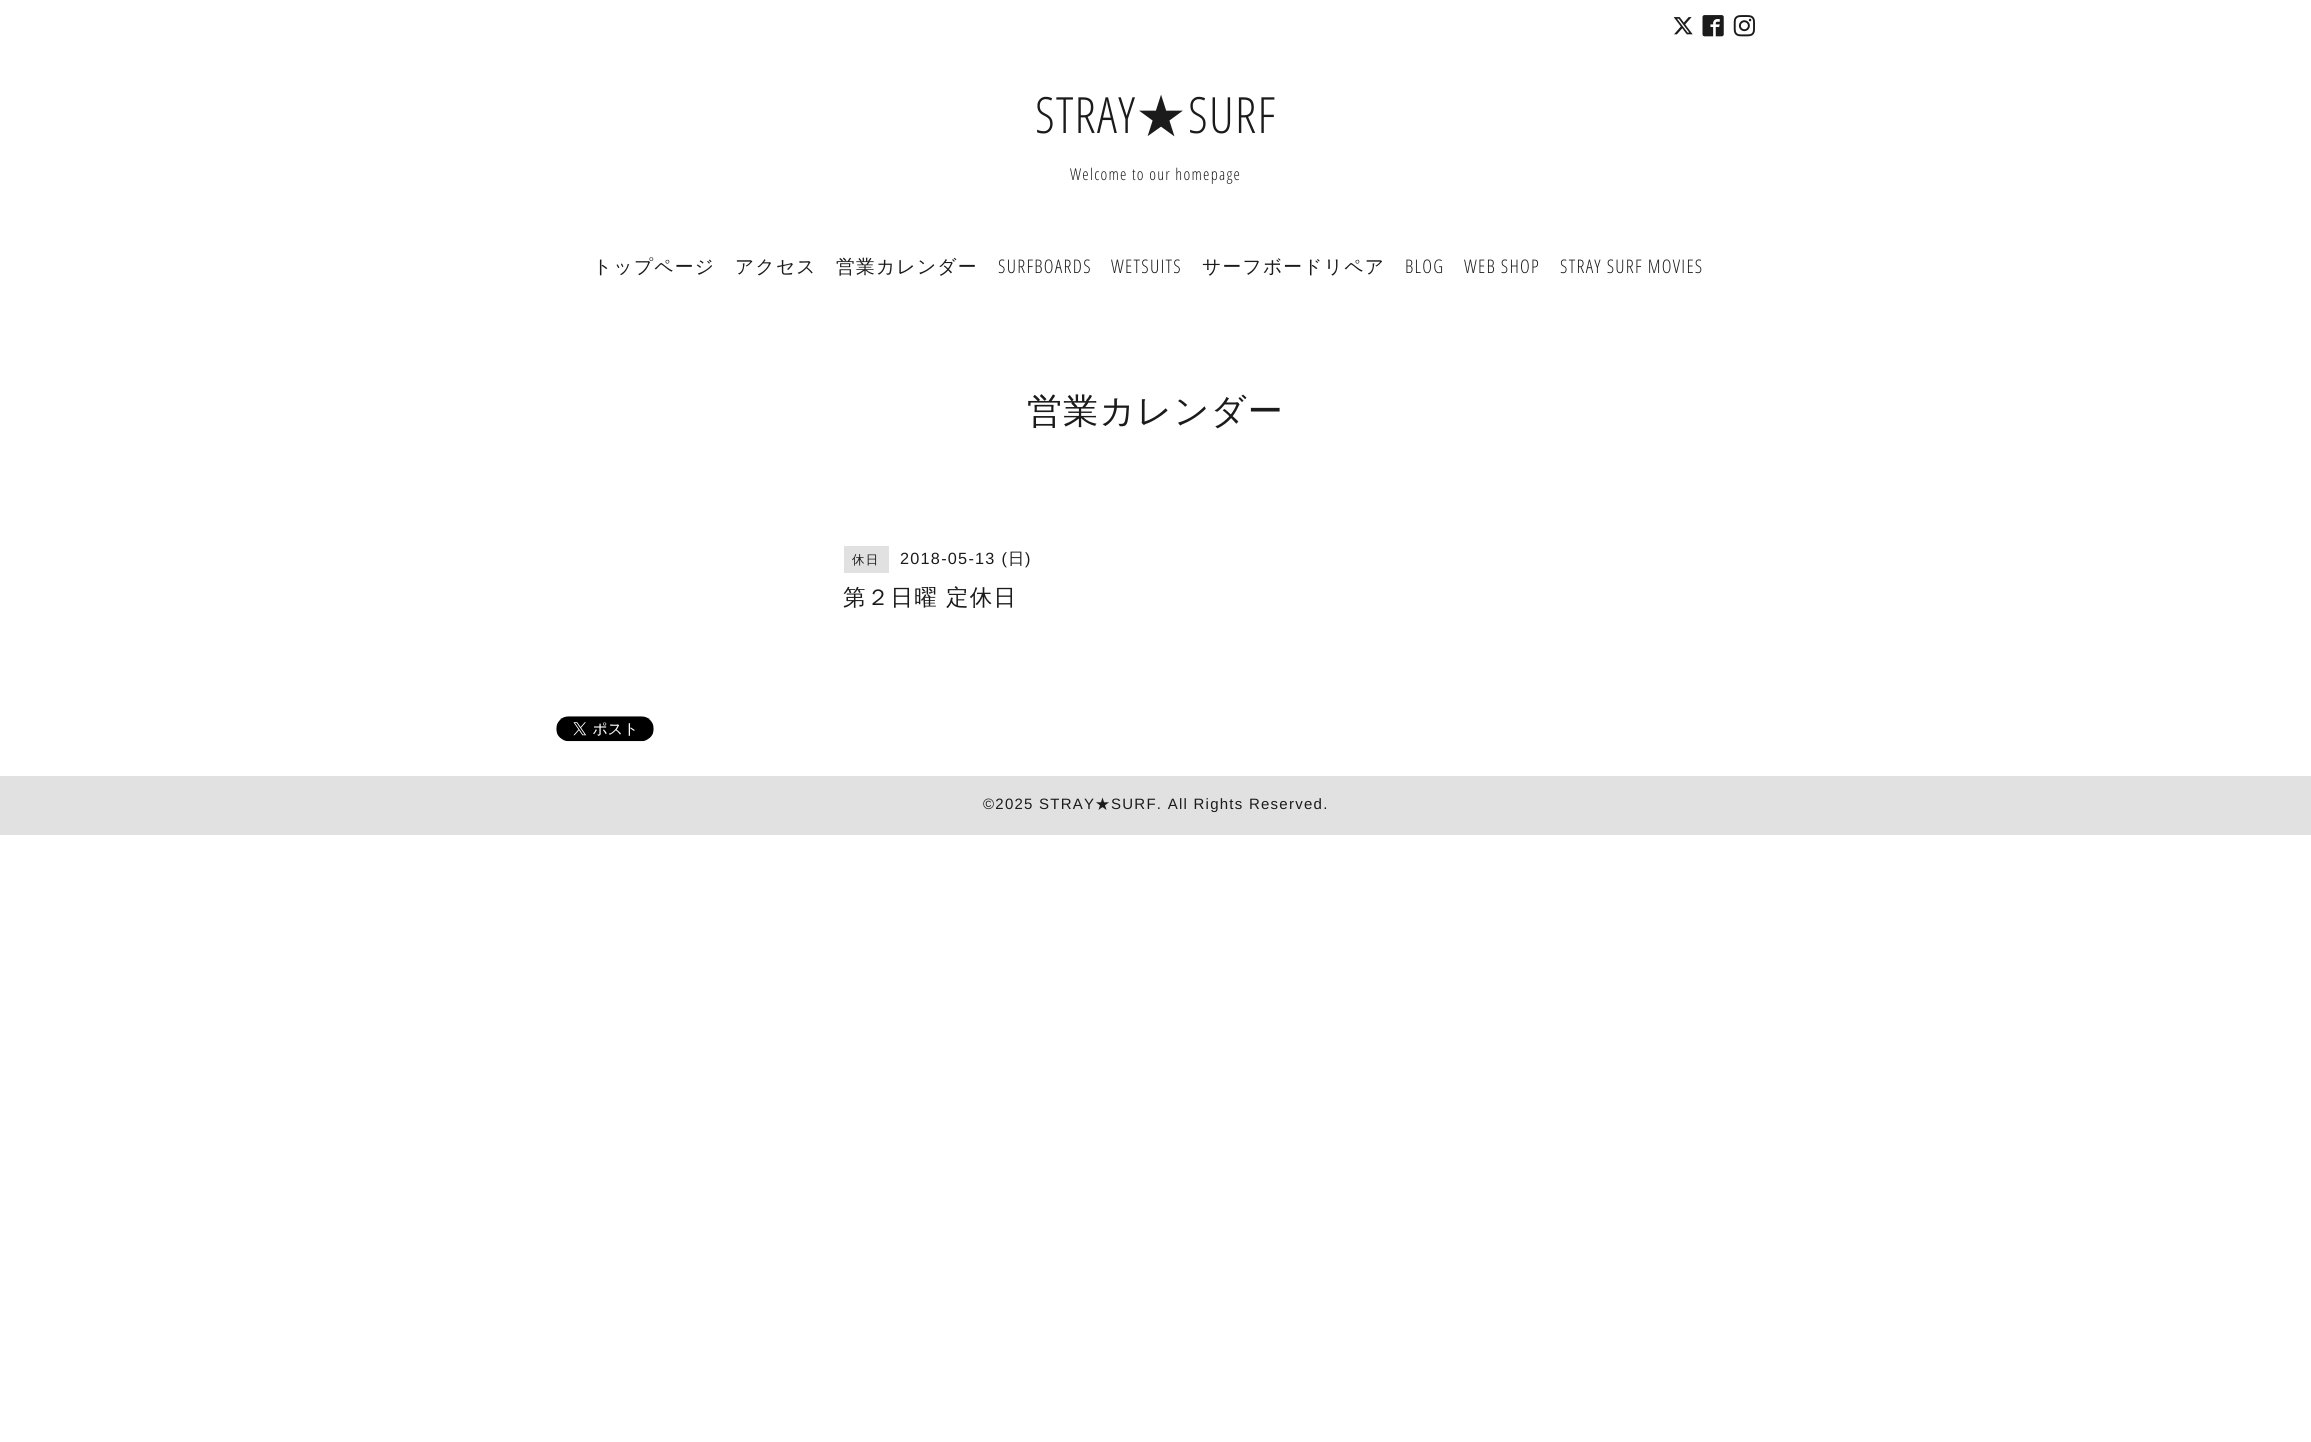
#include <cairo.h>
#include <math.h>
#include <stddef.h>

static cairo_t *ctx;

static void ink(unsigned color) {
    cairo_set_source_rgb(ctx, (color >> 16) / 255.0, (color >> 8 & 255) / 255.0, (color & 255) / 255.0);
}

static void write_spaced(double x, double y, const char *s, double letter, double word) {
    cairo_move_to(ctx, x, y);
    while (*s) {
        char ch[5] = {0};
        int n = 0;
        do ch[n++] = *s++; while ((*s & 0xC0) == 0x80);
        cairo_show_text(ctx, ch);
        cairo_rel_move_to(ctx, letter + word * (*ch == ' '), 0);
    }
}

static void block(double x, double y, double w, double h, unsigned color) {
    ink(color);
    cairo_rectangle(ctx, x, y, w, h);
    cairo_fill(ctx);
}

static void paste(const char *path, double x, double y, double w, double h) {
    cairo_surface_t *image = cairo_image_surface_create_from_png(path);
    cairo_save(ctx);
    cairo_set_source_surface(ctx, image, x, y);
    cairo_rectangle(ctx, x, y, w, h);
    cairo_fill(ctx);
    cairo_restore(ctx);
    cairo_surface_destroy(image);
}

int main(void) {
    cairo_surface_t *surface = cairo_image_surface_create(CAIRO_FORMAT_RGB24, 2311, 1442);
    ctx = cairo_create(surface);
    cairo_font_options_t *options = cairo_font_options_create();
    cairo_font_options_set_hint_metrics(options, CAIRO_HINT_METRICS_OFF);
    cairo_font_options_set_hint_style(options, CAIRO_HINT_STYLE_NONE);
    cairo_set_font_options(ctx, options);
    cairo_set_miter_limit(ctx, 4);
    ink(0xffffff);
    cairo_paint(ctx);
    paste("pic1.png", 1673, 17, 20, 18);
    paste("pic2.png", 1702, 15, 22, 22);
    paste("pic3.png", 1733, 15, 22, 22);
    cairo_select_font_face(ctx, "Open Sans Condensed Light", CAIRO_FONT_SLANT_NORMAL, CAIRO_FONT_WEIGHT_NORMAL);
    cairo_set_font_size(ctx, 50);
    ink(0x1b1b1b);
    write_spaced(1035, 133, "STRAY", 1.25, 0);
    cairo_select_font_face(ctx, "WenQuanYi Zen Hei Medium", CAIRO_FONT_SLANT_NORMAL, CAIRO_FONT_WEIGHT_NORMAL);
    write_spaced(1136, 133, "★", 1.25, 0);
    cairo_select_font_face(ctx, "Open Sans Condensed Light", CAIRO_FONT_SLANT_NORMAL, CAIRO_FONT_WEIGHT_NORMAL);
    write_spaced(1188, 133, "SURF", 1.25, 0);
    cairo_set_font_size(ctx, 16.25);
    write_spaced(1070, 180, "Welcome to our homepage", 1.25, 0);
    cairo_select_font_face(ctx, "WenQuanYi Zen Hei Medium", CAIRO_FONT_SLANT_NORMAL, CAIRO_FONT_WEIGHT_NORMAL);
    cairo_set_font_size(ctx, 18.75);
    write_spaced(593, 273, "トップページ", 1.25, 0);
    write_spaced(735, 273, "アクセス", 1.25, 0);
    write_spaced(836, 273, "営業カレンダー", 1.25, 0);
    cairo_select_font_face(ctx, "Open Sans Condensed Light", CAIRO_FONT_SLANT_NORMAL, CAIRO_FONT_WEIGHT_NORMAL);
    write_spaced(998, 273, "SURFBOARDS", 1.25, 0);
    write_spaced(1111, 273, "WETSUITS", 1.25, 0);
    cairo_select_font_face(ctx, "WenQuanYi Zen Hei Medium", CAIRO_FONT_SLANT_NORMAL, CAIRO_FONT_WEIGHT_NORMAL);
    write_spaced(1202, 273, "サーフボードリペア", 1.25, 0);
    cairo_select_font_face(ctx, "Open Sans Condensed Light", CAIRO_FONT_SLANT_NORMAL, CAIRO_FONT_WEIGHT_NORMAL);
    write_spaced(1405, 273, "BLOG", 1.25, 0);
    write_spaced(1464, 273, "WEB SHOP", 1.25, 0);
    write_spaced(1560, 273, "STRAY SURF MOVIES", 1.25, 0);
    cairo_select_font_face(ctx, "WenQuanYi Zen Hei Medium", CAIRO_FONT_SLANT_NORMAL, CAIRO_FONT_WEIGHT_NORMAL);
    cairo_set_font_size(ctx, 35);
    write_spaced(1027, 423, "営業カレンダー", 1.25, 0);
    block(844, 546, 45, 27, 0xe1e1e1);
    cairo_set_font_size(ctx, 12.5);
    ink(0x1b1b1b);
    write_spaced(852, 564, "休日", 1.25, 0);
    cairo_select_font_face(ctx, "Liberation Sans", CAIRO_FONT_SLANT_NORMAL, CAIRO_FONT_WEIGHT_NORMAL);
    cairo_set_font_size(ctx, 16.25);
    write_spaced(900, 564, "2018-05-13 (", 1.25, 0);
    cairo_select_font_face(ctx, "WenQuanYi Zen Hei Medium", CAIRO_FONT_SLANT_NORMAL, CAIRO_FONT_WEIGHT_NORMAL);
    write_spaced(1008, 564, "日", 1.25, 0);
    cairo_select_font_face(ctx, "Liberation Sans", CAIRO_FONT_SLANT_NORMAL, CAIRO_FONT_WEIGHT_NORMAL);
    write_spaced(1025, 564, ")", 1.25, 0);
    cairo_select_font_face(ctx, "WenQuanYi Zen Hei Medium", CAIRO_FONT_SLANT_NORMAL, CAIRO_FONT_WEIGHT_NORMAL);
    cairo_set_font_size(ctx, 22.5);
    write_spaced(843, 605, "第２日曜 定休日", 1.25, 0);
    paste("pic4.png", 556, 716, 98, 26);
    block(0, 776, 2311, 59, 0xe1e1e1);
    cairo_select_font_face(ctx, "Liberation Sans", CAIRO_FONT_SLANT_NORMAL, CAIRO_FONT_WEIGHT_NORMAL);
    cairo_set_font_size(ctx, 15);
    ink(0x1b1b1b);
    write_spaced(983, 809, "©2025 STRAY", 1.25, 0);
    cairo_select_font_face(ctx, "WenQuanYi Zen Hei Medium", CAIRO_FONT_SLANT_NORMAL, CAIRO_FONT_WEIGHT_NORMAL);
    write_spaced(1095, 809, "★", 1.25, 0);
    cairo_select_font_face(ctx, "Liberation Sans", CAIRO_FONT_SLANT_NORMAL, CAIRO_FONT_WEIGHT_NORMAL);
    write_spaced(1111, 809, "SURF. All Rights Reserved.", 1.25, 0);
    cairo_surface_write_to_png(surface, "screenshot.png");
    cairo_font_options_destroy(options);
    cairo_destroy(ctx);
    cairo_surface_destroy(surface);
    return 0;
}
